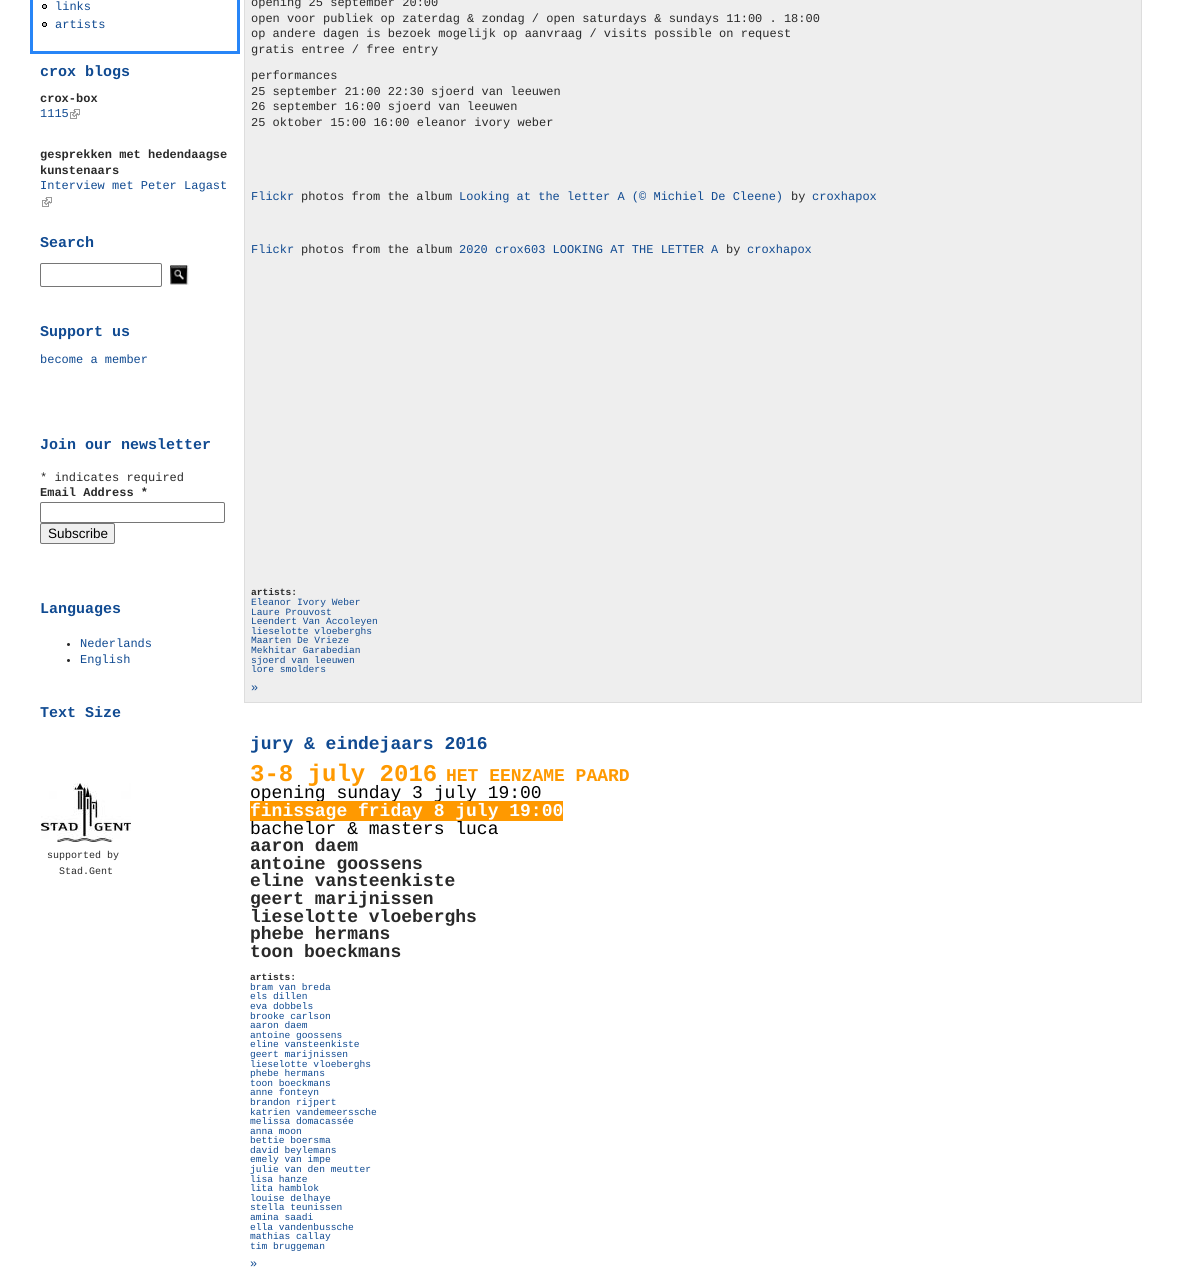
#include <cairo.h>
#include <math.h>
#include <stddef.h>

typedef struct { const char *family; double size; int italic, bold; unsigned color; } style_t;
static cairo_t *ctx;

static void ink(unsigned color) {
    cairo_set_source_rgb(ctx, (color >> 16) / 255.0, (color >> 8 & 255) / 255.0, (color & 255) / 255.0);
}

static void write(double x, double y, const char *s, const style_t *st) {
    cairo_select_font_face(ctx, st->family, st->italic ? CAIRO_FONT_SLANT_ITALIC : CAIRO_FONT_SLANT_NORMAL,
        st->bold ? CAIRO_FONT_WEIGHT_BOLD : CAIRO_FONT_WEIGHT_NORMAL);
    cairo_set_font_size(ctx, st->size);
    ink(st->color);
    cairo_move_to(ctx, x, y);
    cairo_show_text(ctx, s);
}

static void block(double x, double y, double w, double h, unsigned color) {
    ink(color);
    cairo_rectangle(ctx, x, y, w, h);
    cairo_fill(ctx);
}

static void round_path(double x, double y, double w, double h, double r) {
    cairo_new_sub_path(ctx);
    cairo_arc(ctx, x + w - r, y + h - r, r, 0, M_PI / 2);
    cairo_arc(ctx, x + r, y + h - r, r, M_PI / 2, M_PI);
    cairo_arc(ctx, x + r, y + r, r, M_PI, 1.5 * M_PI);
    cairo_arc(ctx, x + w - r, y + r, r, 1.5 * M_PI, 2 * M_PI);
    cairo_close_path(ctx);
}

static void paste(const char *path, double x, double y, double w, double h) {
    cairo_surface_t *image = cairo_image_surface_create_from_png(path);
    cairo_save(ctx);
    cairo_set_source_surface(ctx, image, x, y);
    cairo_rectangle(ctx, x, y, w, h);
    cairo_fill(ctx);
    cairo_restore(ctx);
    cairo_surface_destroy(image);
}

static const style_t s1 = {"Liberation Mono", 12, 0, 0, 0x104a91};
static const style_t s2 = {"Liberation Mono", 15, 0, 1, 0x104a91};
static const style_t s3 = {"Liberation Mono", 12, 0, 1, 0x292929};
static const style_t s4 = {"Liberation Mono", 12, 0, 0, 0x292929};
static const style_t s5 = {"Liberation Sans", 13.5, 0, 0, 0x000000};
static const style_t s6 = {"Liberation Mono", 10, 0, 0, 0x292929};
static const style_t s7 = {"Liberation Mono", 9.6, 0, 1, 0x292929};
static const style_t s8 = {"Liberation Mono", 9.6, 0, 0, 0x104a91};
static const style_t s9 = {"Liberation Mono", 18, 0, 1, 0x104a91};
static const style_t s10 = {"Liberation Mono", 24, 0, 1, 0xff9900};
static const style_t s11 = {"Liberation Mono", 18, 0, 1, 0xff9900};
static const style_t s12 = {"Liberation Mono", 18, 0, 0, 0x000000};
static const style_t s13 = {"Liberation Mono", 18, 0, 1, 0xffffff};
static const style_t s14 = {"Liberation Mono", 18, 0, 1, 0x292929};

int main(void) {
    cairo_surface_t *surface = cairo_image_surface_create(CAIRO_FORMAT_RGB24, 1182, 1276);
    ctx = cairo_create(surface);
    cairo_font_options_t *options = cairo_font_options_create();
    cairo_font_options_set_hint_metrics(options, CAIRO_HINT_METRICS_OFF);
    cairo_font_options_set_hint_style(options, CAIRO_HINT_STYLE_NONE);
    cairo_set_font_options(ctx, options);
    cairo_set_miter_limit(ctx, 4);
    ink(0xffffff);
    cairo_paint(ctx);
    cairo_rectangle(ctx, 31.5, -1.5, 207, 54);
    ink(0x2885f7);
    cairo_set_line_width(ctx, 3);
    cairo_stroke(ctx);
    paste("pic1.png", 42, 4, 5, 5);
    write(55, 10, "links", &s1);
    paste("pic1.png", 42, 22, 5, 5);
    write(55, 28, "artists", &s1);
    write(40, 76, "crox blogs", &s2);
    write(40, 102, "crox-box", &s3);
    write(40, 117, "1115", &s1);
    paste("pic2.png", 70, 109, 10, 10);
    write(40, 158, "gesprekken met hedendaagse", &s3);
    write(40, 174, "kunstenaars", &s3);
    write(40, 189, "Interview met Peter Lagast", &s1);
    paste("pic2.png", 42, 197, 10, 10);
    write(40, 247, "Search", &s2);
    round_path(40.5, 263.5, 121, 23, 1.5);
    ink(0x767676);
    cairo_set_line_width(ctx, 1);
    cairo_stroke(ctx);
    paste("pic3.png", 170, 265, 19, 20);
    write(40, 336, "Support us", &s2);
    write(40, 363, "become a member", &s1);
    write(40, 449, "Join our newsletter", &s2);
    write(40, 481, "* indicates required", &s4);
    write(40, 496, "Email Address *", &s3);
    round_path(40.5, 502.5, 184, 20, 1.5);
    ink(0x767676);
    cairo_stroke(ctx);
    ink(0xefefef);
    round_path(40.5, 523.5, 74, 20, 1.5);
    cairo_fill_preserve(ctx);
    ink(0x767676);
    cairo_stroke(ctx);
    write(48, 538, "Subscribe", &s5);
    write(40, 613, "Languages", &s2);
    ink(0x292929);
    cairo_new_path(ctx);
    cairo_arc(ctx, 68.5, 644.5, 1.5, 0, 2 * M_PI);
    cairo_fill(ctx);
    write(80, 647, "Nederlands", &s1);
    ink(0x292929);
    cairo_new_path(ctx);
    cairo_arc(ctx, 68.5, 660.5, 1.5, 0, 2 * M_PI);
    cairo_fill(ctx);
    write(80, 663, "English", &s1);
    write(40, 717, "Text Size", &s2);
    paste("pic4.png", 41, 783, 90, 59);
    write(47, 858, "supported by", &s6);
    write(59, 874, "Stad.Gent", &s6);
    ink(0xeeeeee);
    cairo_rectangle(ctx, 244.5, -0.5, 897, 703);
    cairo_fill_preserve(ctx);
    ink(0xdddddd);
    cairo_stroke(ctx);
    write(251, 6, "opening 25 september 20:00", &s4);
    write(251, 22, "open voor publiek op zaterdag & zondag / open saturdays & sundays 11:00 . 18:00", &s4);
    write(251, 37, "op andere dagen is bezoek mogelijk op aanvraag / visits possible on request", &s4);
    write(251, 53, "gratis entree / free entry", &s4);
    write(251, 79, "performances", &s4);
    write(251, 95, "25 september 21:00 22:30 sjoerd van leeuwen", &s4);
    write(251, 110, "26 september 16:00 sjoerd van leeuwen", &s4);
    write(251, 126, "25 oktober 15:00 16:00 eleanor ivory weber", &s4);
    write(251, 200, "Flickr", &s1);
    write(301, 200, "photos from the album", &s4);
    write(459, 200, "Looking at the letter A (© Michiel De Cleene)", &s1);
    write(791, 200, "by", &s4);
    write(812, 200, "croxhapox", &s1);
    write(251, 253, "Flickr", &s1);
    write(301, 253, "photos from the album", &s4);
    write(459, 253, "2020 crox603 LOOKING AT THE LETTER A", &s1);
    write(726, 253, "by", &s4);
    write(747, 253, "croxhapox", &s1);
    write(251, 595, "artists:", &s7);
    write(251, 605, "Eleanor Ivory Weber", &s8);
    write(251, 615, "Laure Prouvost", &s8);
    write(251, 624, "Leendert Van Accoleyen", &s8);
    write(251, 634, "lieselotte vloeberghs", &s8);
    write(251, 643, "Maarten De Vrieze", &s8);
    write(251, 653, "Mekhitar Garabedian", &s8);
    write(251, 663, "sjoerd van leeuwen", &s8);
    write(251, 672, "lore smolders", &s8);
    write(251, 691, "»", &s1);
    write(250, 749, "jury & eindejaars 2016", &s9);
    write(250, 781, "3-8 july 2016", &s10);
    write(446, 781, "HET EENZAME PAARD", &s11);
    write(250, 798, "opening sunday 3 july 19:00", &s12);
    block(250, 801, 313, 20, 0xff9900);
    write(250, 816, "finissage friday 8 july 19:00", &s13);
    write(250, 834, "bachelor & masters luca", &s12);
    write(250, 851, "aaron daem", &s14);
    write(250, 869, "antoine goossens", &s14);
    write(250, 886, "eline vansteenkiste", &s14);
    write(250, 904, "geert marijnissen", &s14);
    write(250, 922, "lieselotte vloeberghs", &s14);
    write(250, 939, "phebe hermans", &s14);
    write(250, 957, "toon boeckmans", &s14);
    write(250, 980, "artists:", &s7);
    write(250, 990, "bram van breda", &s8);
    write(250, 999, "els dillen", &s8);
    write(250, 1009, "eva dobbels", &s8);
    write(250, 1019, "brooke carlson", &s8);
    write(250, 1028, "aaron daem", &s8);
    write(250, 1038, "antoine goossens", &s8);
    write(250, 1047, "eline vansteenkiste", &s8);
    write(250, 1057, "geert marijnissen", &s8);
    write(250, 1067, "lieselotte vloeberghs", &s8);
    write(250, 1076, "phebe hermans", &s8);
    write(250, 1086, "toon boeckmans", &s8);
    write(250, 1095, "anne fonteyn", &s8);
    write(250, 1105, "brandon rijpert", &s8);
    write(250, 1115, "katrien vandemeerssche", &s8);
    write(250, 1124, "melissa domacassée", &s8);
    write(250, 1134, "anna moon", &s8);
    write(250, 1143, "bettie boersma", &s8);
    write(250, 1153, "david beylemans", &s8);
    write(250, 1162, "emely van impe", &s8);
    write(250, 1172, "julie van den meutter", &s8);
    write(250, 1182, "lisa hanze", &s8);
    write(250, 1191, "lita hamblok", &s8);
    write(250, 1201, "louise delhaye", &s8);
    write(250, 1210, "stella teunissen", &s8);
    write(250, 1220, "amina saadi", &s8);
    write(250, 1230, "ella vandenbussche", &s8);
    write(250, 1239, "mathias callay", &s8);
    write(250, 1249, "tim bruggeman", &s8);
    write(250, 1267, "»", &s1);
    cairo_surface_write_to_png(surface, "screenshot.png");
    cairo_font_options_destroy(options);
    cairo_destroy(ctx);
    cairo_surface_destroy(surface);
    return 0;
}
